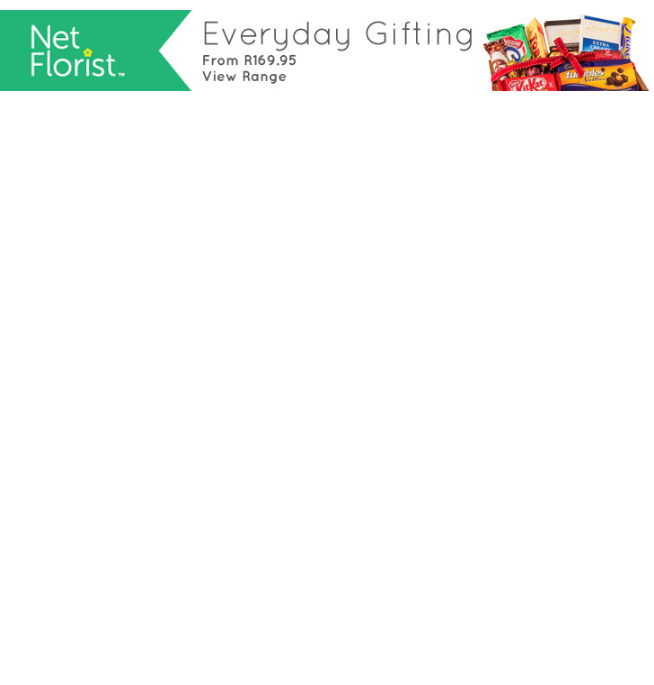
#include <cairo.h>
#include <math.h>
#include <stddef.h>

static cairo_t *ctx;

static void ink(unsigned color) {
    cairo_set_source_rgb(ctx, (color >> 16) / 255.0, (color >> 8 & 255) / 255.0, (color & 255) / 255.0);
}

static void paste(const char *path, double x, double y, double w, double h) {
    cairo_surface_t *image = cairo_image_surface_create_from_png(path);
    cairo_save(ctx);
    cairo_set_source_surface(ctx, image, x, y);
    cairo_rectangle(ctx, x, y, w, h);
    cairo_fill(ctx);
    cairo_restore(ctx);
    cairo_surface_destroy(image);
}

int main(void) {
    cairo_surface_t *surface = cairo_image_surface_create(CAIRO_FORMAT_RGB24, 654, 685);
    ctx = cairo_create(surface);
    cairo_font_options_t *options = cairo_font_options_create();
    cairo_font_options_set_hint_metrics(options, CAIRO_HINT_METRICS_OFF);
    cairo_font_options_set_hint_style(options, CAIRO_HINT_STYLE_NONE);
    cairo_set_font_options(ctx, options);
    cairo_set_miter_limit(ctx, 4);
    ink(0xffffff);
    cairo_paint(ctx);
    paste("pic1.png", 0, 10, 653, 81);
    cairo_surface_write_to_png(surface, "screenshot.png");
    cairo_font_options_destroy(options);
    cairo_destroy(ctx);
    cairo_surface_destroy(surface);
    return 0;
}
